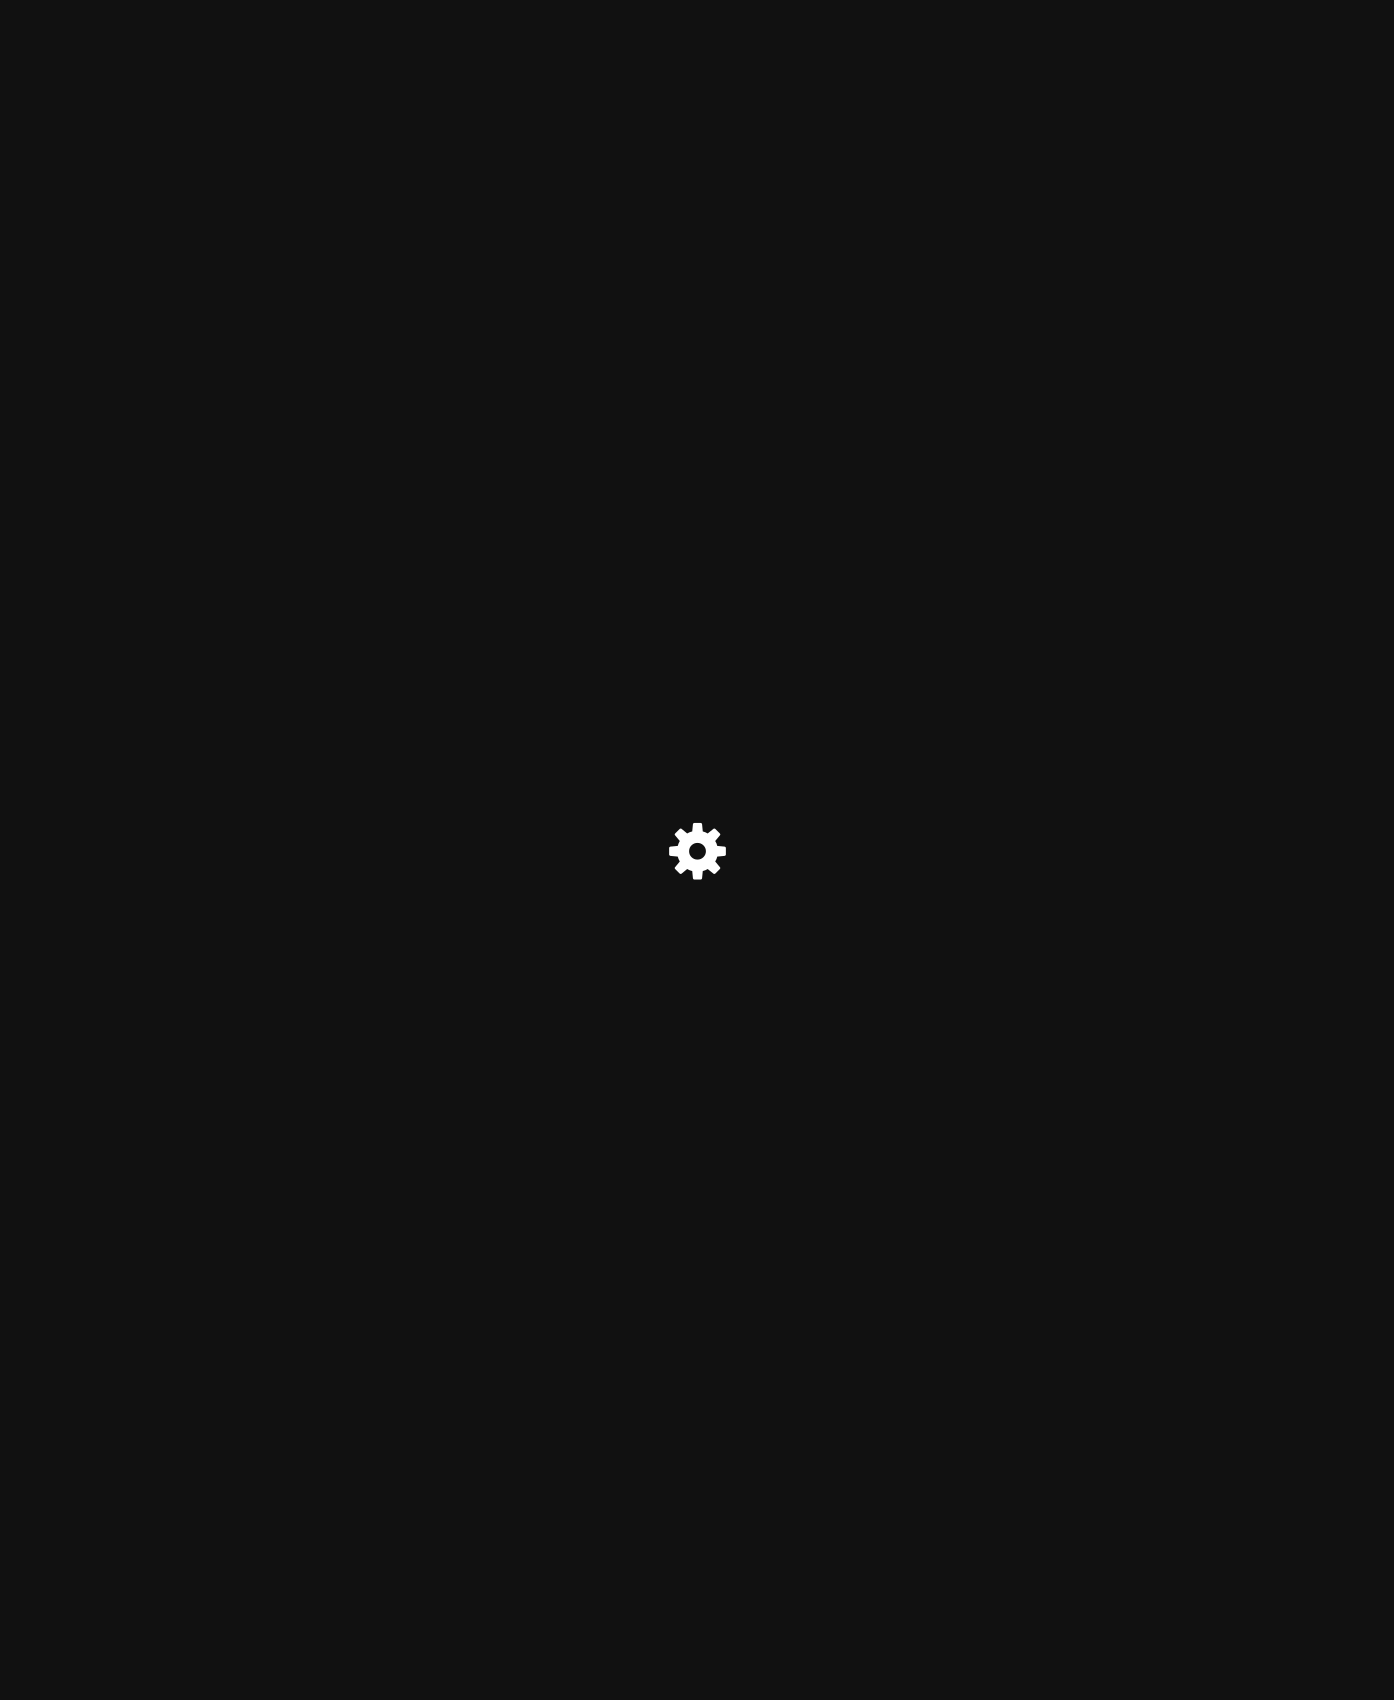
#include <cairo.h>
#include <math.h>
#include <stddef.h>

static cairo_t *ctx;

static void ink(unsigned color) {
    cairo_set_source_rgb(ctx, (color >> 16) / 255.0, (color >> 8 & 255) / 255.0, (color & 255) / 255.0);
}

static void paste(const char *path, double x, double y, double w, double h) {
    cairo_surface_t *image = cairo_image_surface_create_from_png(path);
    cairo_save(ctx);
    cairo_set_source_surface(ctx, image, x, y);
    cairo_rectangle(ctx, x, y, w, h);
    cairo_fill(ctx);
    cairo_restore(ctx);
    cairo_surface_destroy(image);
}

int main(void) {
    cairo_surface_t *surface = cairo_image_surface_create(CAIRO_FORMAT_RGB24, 1394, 1700);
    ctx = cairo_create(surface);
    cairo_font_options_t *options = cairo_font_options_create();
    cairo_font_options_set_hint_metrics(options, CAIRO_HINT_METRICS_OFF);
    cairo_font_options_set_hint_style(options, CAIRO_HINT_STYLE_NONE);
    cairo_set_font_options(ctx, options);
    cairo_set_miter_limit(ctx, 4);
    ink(0x111111);
    cairo_paint(ctx);
    paste("pic1.png", 669, 822, 57, 58);
    cairo_surface_write_to_png(surface, "screenshot.png");
    cairo_font_options_destroy(options);
    cairo_destroy(ctx);
    cairo_surface_destroy(surface);
    return 0;
}
